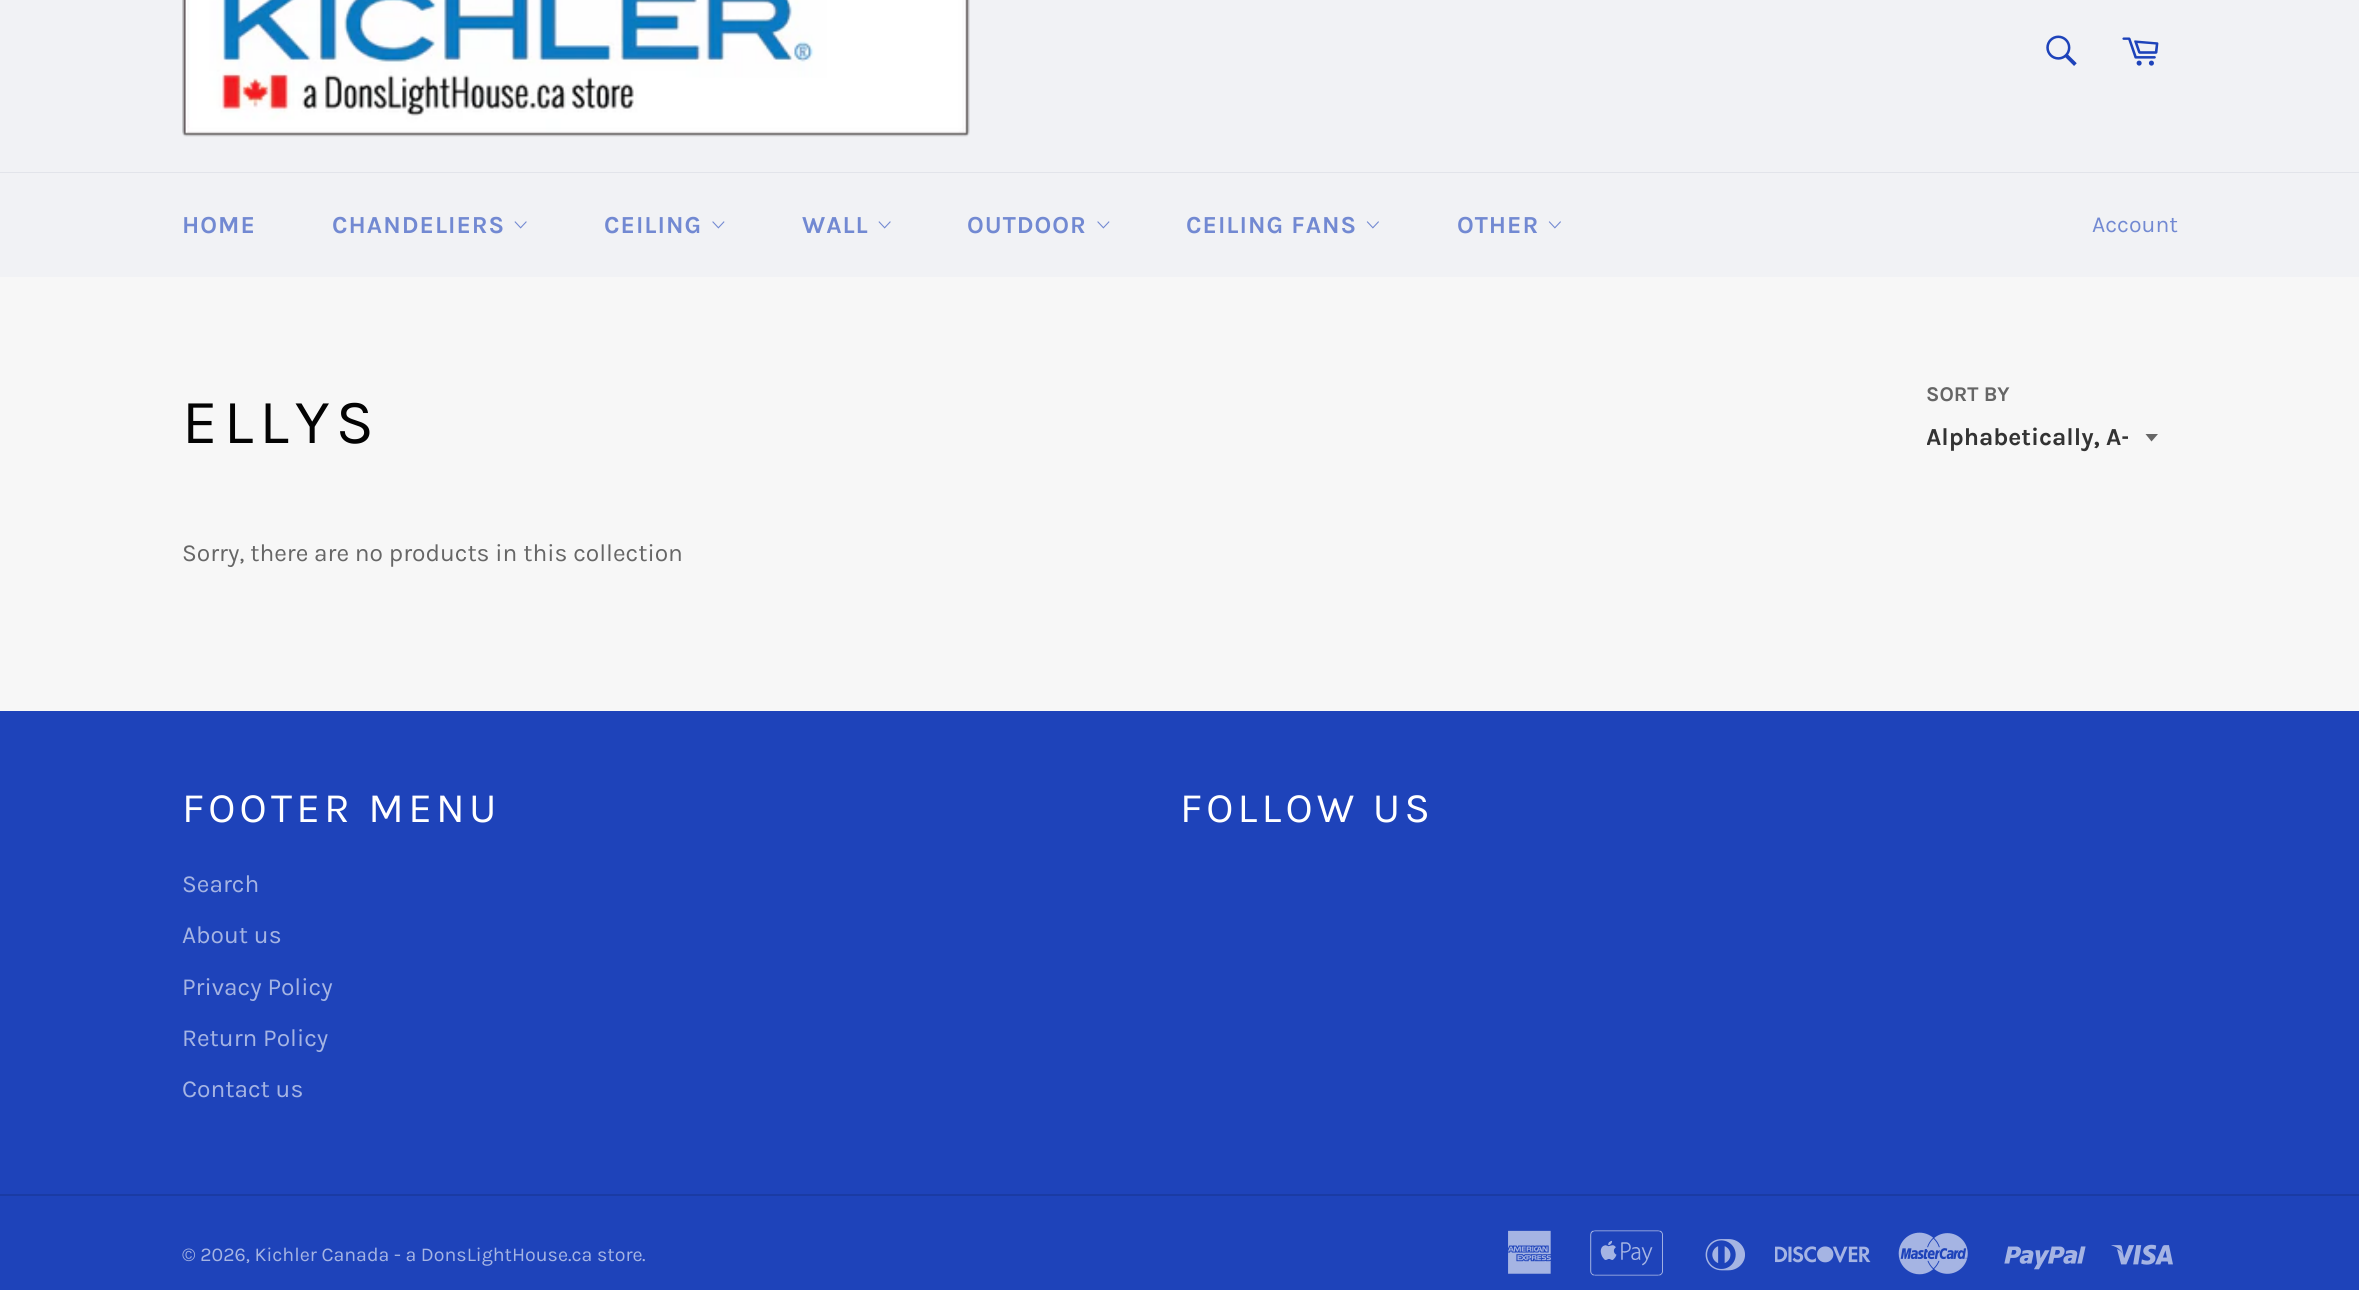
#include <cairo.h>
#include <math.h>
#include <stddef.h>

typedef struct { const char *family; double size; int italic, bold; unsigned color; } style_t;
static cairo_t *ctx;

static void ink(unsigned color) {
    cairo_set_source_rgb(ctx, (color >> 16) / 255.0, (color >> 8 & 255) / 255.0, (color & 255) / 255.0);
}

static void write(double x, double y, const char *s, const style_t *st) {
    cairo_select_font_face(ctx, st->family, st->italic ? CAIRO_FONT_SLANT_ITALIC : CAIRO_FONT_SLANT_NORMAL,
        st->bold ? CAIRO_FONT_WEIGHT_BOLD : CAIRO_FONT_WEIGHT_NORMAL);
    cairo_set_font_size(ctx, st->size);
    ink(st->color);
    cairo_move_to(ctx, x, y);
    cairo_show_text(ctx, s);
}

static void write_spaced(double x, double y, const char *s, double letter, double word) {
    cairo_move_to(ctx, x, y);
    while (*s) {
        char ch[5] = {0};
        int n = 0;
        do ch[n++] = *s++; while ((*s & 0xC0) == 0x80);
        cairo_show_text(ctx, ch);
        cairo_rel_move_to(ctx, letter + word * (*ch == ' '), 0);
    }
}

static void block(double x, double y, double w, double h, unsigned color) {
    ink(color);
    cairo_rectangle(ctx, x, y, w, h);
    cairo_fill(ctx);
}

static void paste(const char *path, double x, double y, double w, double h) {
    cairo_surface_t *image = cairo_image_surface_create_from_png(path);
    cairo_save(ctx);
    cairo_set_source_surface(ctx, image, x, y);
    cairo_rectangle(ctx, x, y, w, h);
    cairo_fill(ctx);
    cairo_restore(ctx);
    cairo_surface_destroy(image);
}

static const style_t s1 = {"Karla", 23, 0, 0, 0x7289d2};
static const style_t s2 = {"Karla", 21, 0, 1, 0x666666};
static const style_t s3 = {"Karla", 24.5, 0, 1, 0x333333};
static const style_t s4 = {"Karla", 24.5, 0, 0, 0x666666};
static const style_t s5 = {"Karla", 24.5, 0, 0, 0xa5b4e3};
static const style_t s6 = {"Karla", 19.6, 0, 0, 0xa5b4e3};

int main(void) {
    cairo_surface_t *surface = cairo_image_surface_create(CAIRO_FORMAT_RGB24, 2359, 1290);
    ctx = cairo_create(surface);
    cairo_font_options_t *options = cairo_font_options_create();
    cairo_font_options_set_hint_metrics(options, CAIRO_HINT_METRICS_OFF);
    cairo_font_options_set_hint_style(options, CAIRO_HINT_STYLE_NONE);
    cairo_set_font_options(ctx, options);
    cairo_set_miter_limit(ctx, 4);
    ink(0xf7f7f7);
    cairo_paint(ctx);
    block(0, 0, 2359, 172, 0xf1f2f5);
    paste("pic1.png", 182, 0, 788, 137);
    paste("pic2.png", 2046, 35, 31, 31);
    paste("pic3.png", 2122, 37, 37, 29);
    block(0, 172, 2359, 1, 0xe2e4ea);
    block(0, 173, 2359, 104, 0xf1f2f5);
    cairo_select_font_face(ctx, "Karla", CAIRO_FONT_SLANT_NORMAL, CAIRO_FONT_WEIGHT_BOLD);
    cairo_set_font_size(ctx, 24.5);
    ink(0x7289d2);
    write_spaced(182, 233, "HOME", 1, 0);
    write_spaced(332, 233, "CHANDELIERS", 1, 0);
    paste("pic4.png", 514, 221, 13, 8);
    write_spaced(604, 233, "CEILING", 1, 0);
    paste("pic5.png", 712, 221, 13, 8);
    write_spaced(802, 233, "WALL", 1, 0);
    paste("pic4.png", 878, 221, 13, 8);
    write_spaced(967, 233, "OUTDOOR", 1, 0);
    paste("pic5.png", 1097, 221, 13, 8);
    write_spaced(1186, 233, "CEILING FANS", 1, 0);
    paste("pic6.png", 1366, 221, 13, 8);
    write_spaced(1457, 233, "OTHER", 1, 0);
    paste("pic6.png", 1548, 221, 13, 8);
    write(2092, 232, "Account", &s1);
    cairo_set_font_size(ctx, 63);
    ink(0x030303);
    write_spaced(182, 443, "ELLYS", 6.25, 0);
    write(1926, 401, "SORT BY", &s2);
    cairo_new_path(ctx);
    cairo_move_to(ctx, 2145.5, 434);
    cairo_line_to(ctx, 2151.5, 441.5);
    cairo_line_to(ctx, 2158, 434);
    cairo_close_path(ctx);
    cairo_fill(ctx);
    cairo_save(ctx);
    cairo_rectangle(ctx, 1927, 420, 201, 35);
    cairo_clip(ctx);
    write(1926, 445, "Alphabetically, A-", &s3);
    cairo_restore(ctx);
    write(182, 561, "Sorry, there are no products in this collection", &s4);
    block(0, 711, 2359, 579, 0x1e43ba);
    cairo_set_font_size(ctx, 42);
    ink(0xffffff);
    write_spaced(182, 822, "FOOTER MENU", 4.25, 0);
    write(182, 892, "Search", &s5);
    write(182, 943, "About us", &s5);
    write(182, 995, "Privacy Policy", &s5);
    write(182, 1046, "Return Policy", &s5);
    write(182, 1097, "Contact us", &s5);
    cairo_set_font_size(ctx, 42);
    ink(0xffffff);
    write_spaced(1180, 822, "FOLLOW US", 4.25, 0);
    block(0, 1194, 2359, 2, 0x1a3ba4);
    write(182, 1261, "© 2026, Kichler Canada - a DonsLightHouse.ca store", &s6);
    write(642, 1261, ".", &s6);
    paste("pic7.png", 1508, 1230, 43, 44);
    paste("pic8.png", 1590, 1230, 73, 46);
    paste("pic9.png", 1705, 1239, 40, 32);
    paste("pic10.png", 1775, 1246, 96, 17);
    paste("pic11.png", 1898, 1232, 70, 43);
    paste("pic12.png", 2004, 1246, 82, 24);
    paste("pic13.png", 2111, 1244, 62, 21);
    cairo_surface_write_to_png(surface, "screenshot.png");
    cairo_font_options_destroy(options);
    cairo_destroy(ctx);
    cairo_surface_destroy(surface);
    return 0;
}
